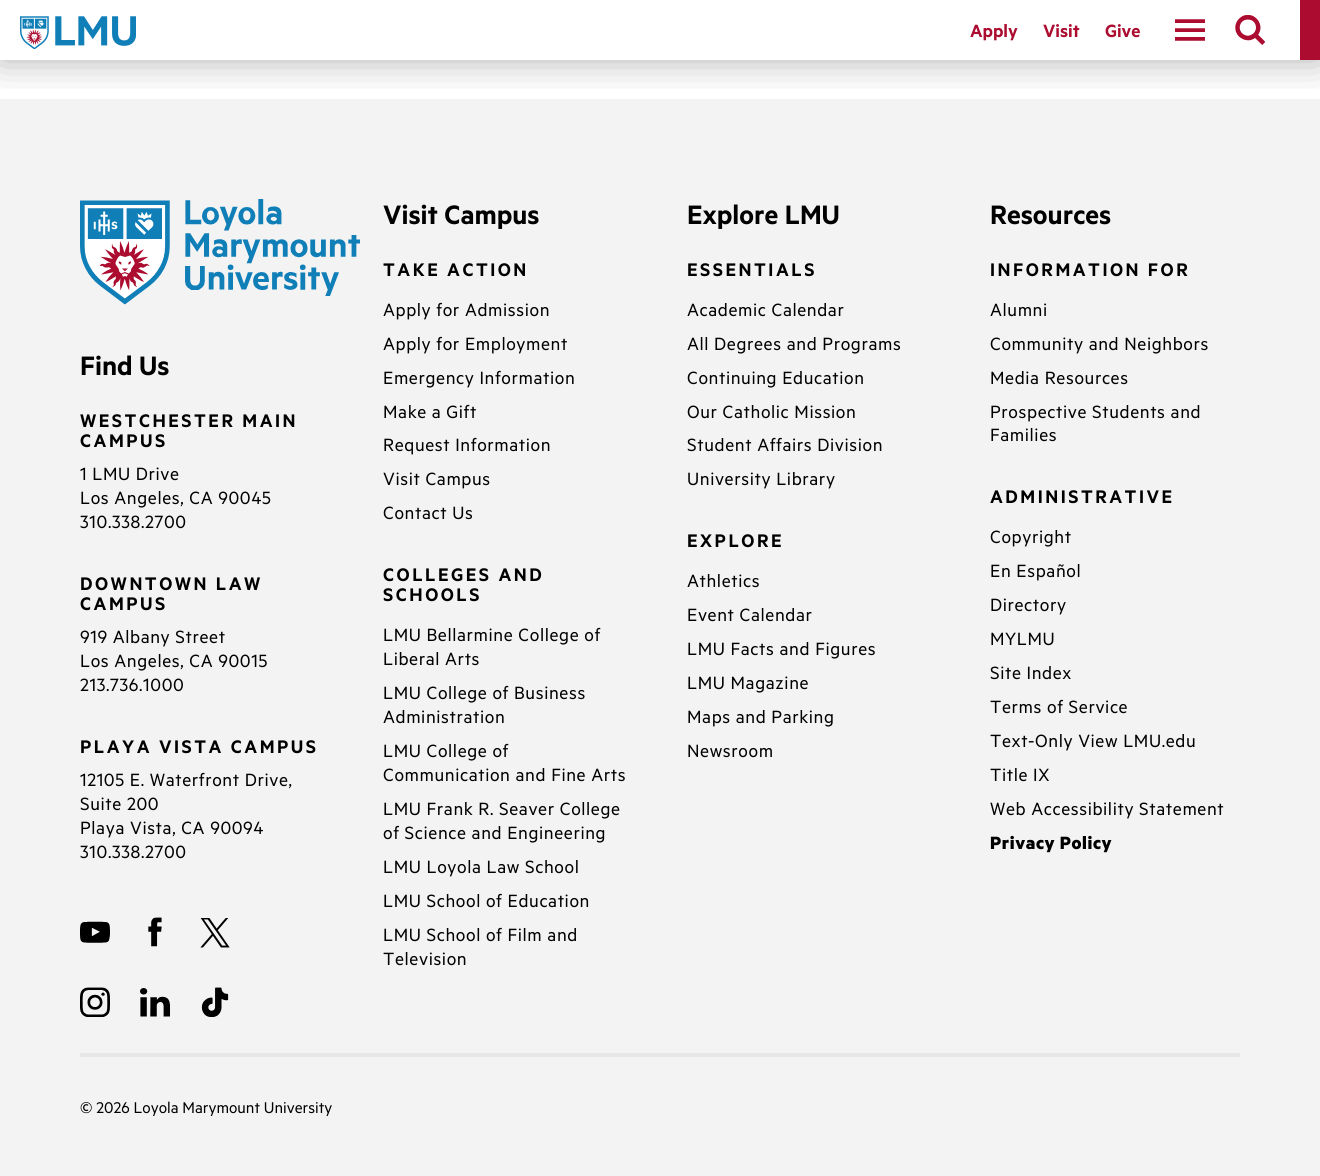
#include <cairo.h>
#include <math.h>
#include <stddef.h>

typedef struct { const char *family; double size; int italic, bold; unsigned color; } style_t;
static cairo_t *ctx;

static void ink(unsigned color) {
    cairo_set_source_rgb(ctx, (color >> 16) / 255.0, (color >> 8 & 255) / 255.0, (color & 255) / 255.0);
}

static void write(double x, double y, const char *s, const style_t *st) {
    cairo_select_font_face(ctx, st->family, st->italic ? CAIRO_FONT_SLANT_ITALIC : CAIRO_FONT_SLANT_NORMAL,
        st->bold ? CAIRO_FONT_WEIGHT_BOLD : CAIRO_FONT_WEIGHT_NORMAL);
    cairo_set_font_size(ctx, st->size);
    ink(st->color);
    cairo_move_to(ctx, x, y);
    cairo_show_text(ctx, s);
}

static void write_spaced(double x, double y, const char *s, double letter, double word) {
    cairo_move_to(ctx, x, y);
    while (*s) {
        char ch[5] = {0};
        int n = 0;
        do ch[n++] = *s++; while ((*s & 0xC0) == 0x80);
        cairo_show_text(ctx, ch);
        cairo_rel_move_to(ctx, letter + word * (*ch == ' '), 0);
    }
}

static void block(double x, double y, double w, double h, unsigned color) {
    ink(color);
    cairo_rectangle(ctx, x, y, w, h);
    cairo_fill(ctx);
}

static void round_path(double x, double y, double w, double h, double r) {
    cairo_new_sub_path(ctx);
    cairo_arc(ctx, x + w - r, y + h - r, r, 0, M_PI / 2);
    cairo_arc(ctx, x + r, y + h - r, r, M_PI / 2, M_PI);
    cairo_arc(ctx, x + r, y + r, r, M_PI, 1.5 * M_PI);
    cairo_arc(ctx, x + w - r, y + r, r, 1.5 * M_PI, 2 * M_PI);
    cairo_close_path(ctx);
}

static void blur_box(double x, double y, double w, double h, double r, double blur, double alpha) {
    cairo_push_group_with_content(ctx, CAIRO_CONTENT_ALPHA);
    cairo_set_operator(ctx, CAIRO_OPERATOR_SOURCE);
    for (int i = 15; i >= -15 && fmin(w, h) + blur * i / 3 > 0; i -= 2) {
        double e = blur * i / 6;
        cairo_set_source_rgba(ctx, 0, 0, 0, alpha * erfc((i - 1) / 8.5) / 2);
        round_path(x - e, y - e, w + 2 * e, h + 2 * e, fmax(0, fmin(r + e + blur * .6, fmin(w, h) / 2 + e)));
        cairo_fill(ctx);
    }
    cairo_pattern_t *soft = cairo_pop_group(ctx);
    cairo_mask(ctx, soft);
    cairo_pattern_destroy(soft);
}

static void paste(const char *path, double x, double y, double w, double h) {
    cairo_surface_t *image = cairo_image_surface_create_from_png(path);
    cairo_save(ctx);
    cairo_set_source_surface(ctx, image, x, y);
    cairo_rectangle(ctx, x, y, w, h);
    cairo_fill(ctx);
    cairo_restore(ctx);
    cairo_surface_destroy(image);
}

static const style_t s1 = {"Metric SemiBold", 20, 0, 0, 0xab0c2f};
static const style_t s2 = {"Metric SemiBold", 30, 0, 0, 0x000000};
static const style_t s3 = {"Metric", 17.5, 0, 0, 0x000000};

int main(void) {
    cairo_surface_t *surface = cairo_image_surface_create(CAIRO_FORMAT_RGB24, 1320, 1176);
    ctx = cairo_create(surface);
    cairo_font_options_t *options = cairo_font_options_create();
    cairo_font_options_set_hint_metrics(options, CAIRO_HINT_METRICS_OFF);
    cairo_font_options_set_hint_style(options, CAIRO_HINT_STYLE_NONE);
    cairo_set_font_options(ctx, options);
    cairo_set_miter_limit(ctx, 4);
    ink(0xffffff);
    cairo_paint(ctx);
    block(0, 99, 1320, 1077, 0xf3f3f3);
    cairo_save(ctx);
    cairo_rectangle(ctx, 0, 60, 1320, 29);
    cairo_clip(ctx);
    ink(0x000000);
    blur_box(0, 0, 1320, 60, 0, 19, 0.32);
    cairo_restore(ctx);
    paste("pic1.png", 20, 16, 116, 33);
    block(1300, 0, 20, 60, 0xab0c2f);
    write(970, 37, "Apply", &s1);
    write(1043, 37, "Visit", &s1);
    write(1105, 37, "Give", &s1);
    paste("pic2.png", 1175, 19, 30, 22);
    paste("pic3.png", 1235, 15, 30, 30);
    paste("pic4.png", 80, 199, 280, 106);
    write(80, 375, "Find Us", &s2);
    cairo_set_font_size(ctx, 20.5);
    write_spaced(80, 427, "WESTCHESTER MAIN", 2.5, 0);
    write_spaced(80, 447, "CAMPUS", 2.5, 0);
    cairo_select_font_face(ctx, "Metric", CAIRO_FONT_SLANT_NORMAL, CAIRO_FONT_WEIGHT_NORMAL);
    cairo_set_font_size(ctx, 20);
    write_spaced(80, 480, "1 LMU Drive", 0.6, 0);
    write_spaced(80, 504, "Los Angeles, CA 90045", 0.6, 0);
    write_spaced(80, 528, "310.338.2700", 0.6, 0);
    cairo_select_font_face(ctx, "Metric SemiBold", CAIRO_FONT_SLANT_NORMAL, CAIRO_FONT_WEIGHT_NORMAL);
    cairo_set_font_size(ctx, 20.5);
    write_spaced(80, 590, "DOWNTOWN LAW", 2.5, 0);
    write_spaced(80, 610, "CAMPUS", 2.5, 0);
    cairo_select_font_face(ctx, "Metric", CAIRO_FONT_SLANT_NORMAL, CAIRO_FONT_WEIGHT_NORMAL);
    cairo_set_font_size(ctx, 20);
    write_spaced(80, 643, "919 Albany Street", 0.6, 0);
    write_spaced(80, 667, "Los Angeles, CA 90015", 0.6, 0);
    write_spaced(80, 691, "213.736.1000", 0.6, 0);
    cairo_select_font_face(ctx, "Metric SemiBold", CAIRO_FONT_SLANT_NORMAL, CAIRO_FONT_WEIGHT_NORMAL);
    cairo_set_font_size(ctx, 20.5);
    write_spaced(80, 753, "PLAYA VISTA CAMPUS", 2.5, 0);
    cairo_select_font_face(ctx, "Metric", CAIRO_FONT_SLANT_NORMAL, CAIRO_FONT_WEIGHT_NORMAL);
    cairo_set_font_size(ctx, 20);
    write_spaced(80, 786, "12105 E. Waterfront Drive,", 0.6, 0);
    write_spaced(80, 810, "Suite 200", 0.6, 0);
    write_spaced(80, 834, "Playa Vista, CA 90094", 0.6, 0);
    write_spaced(80, 858, "310.338.2700", 0.6, 0);
    paste("pic5.png", 80, 921, 30, 22);
    paste("pic6.png", 148, 917, 14, 30);
    paste("pic7.png", 200, 918, 30, 30);
    paste("pic8.png", 80, 987, 30, 30);
    paste("pic9.png", 140, 988, 30, 29);
    paste("pic10.png", 201, 987, 28, 30);
    write(383, 224, "Visit Campus", &s2);
    cairo_set_font_size(ctx, 20.5);
    write_spaced(383, 276, "TAKE ACTION", 2.5, 0);
    cairo_select_font_face(ctx, "Metric", CAIRO_FONT_SLANT_NORMAL, CAIRO_FONT_WEIGHT_NORMAL);
    cairo_set_font_size(ctx, 20);
    write_spaced(383, 316, "Apply for Admission", 0.6, 0);
    write_spaced(383, 350, "Apply for Employment", 0.6, 0);
    write_spaced(383, 384, "Emergency Information", 0.6, 0);
    write_spaced(383, 418, "Make a Gift", 0.6, 0);
    write_spaced(383, 451, "Request Information", 0.6, 0);
    write_spaced(383, 485, "Visit Campus", 0.6, 0);
    write_spaced(383, 519, "Contact Us", 0.6, 0);
    cairo_select_font_face(ctx, "Metric SemiBold", CAIRO_FONT_SLANT_NORMAL, CAIRO_FONT_WEIGHT_NORMAL);
    cairo_set_font_size(ctx, 20.5);
    write_spaced(383, 581, "COLLEGES AND", 2.5, 0);
    write_spaced(383, 601, "SCHOOLS", 2.5, 0);
    cairo_select_font_face(ctx, "Metric", CAIRO_FONT_SLANT_NORMAL, CAIRO_FONT_WEIGHT_NORMAL);
    cairo_set_font_size(ctx, 20);
    write_spaced(383, 641, "LMU Bellarmine College of", 0.6, 0);
    write_spaced(383, 665, "Liberal Arts", 0.6, 0);
    write_spaced(383, 699, "LMU College of Business", 0.6, 0);
    write_spaced(383, 723, "Administration", 0.6, 0);
    write_spaced(383, 757, "LMU College of", 0.6, 0);
    write_spaced(383, 781, "Communication and Fine Arts", 0.6, 0);
    write_spaced(383, 815, "LMU Frank R. Seaver College", 0.6, 0);
    write_spaced(383, 839, "of Science and Engineering", 0.6, 0);
    write_spaced(383, 873, "LMU Loyola Law School", 0.6, 0);
    write_spaced(383, 907, "LMU School of Education", 0.6, 0);
    write_spaced(383, 941, "LMU School of Film and", 0.6, 0);
    write_spaced(383, 965, "Television", 0.6, 0);
    write(687, 224, "Explore LMU", &s2);
    cairo_set_font_size(ctx, 20.5);
    write_spaced(687, 276, "ESSENTIALS", 2.5, 0);
    cairo_select_font_face(ctx, "Metric", CAIRO_FONT_SLANT_NORMAL, CAIRO_FONT_WEIGHT_NORMAL);
    cairo_set_font_size(ctx, 20);
    write_spaced(687, 316, "Academic Calendar", 0.6, 0);
    write_spaced(687, 350, "All Degrees and Programs", 0.6, 0);
    write_spaced(687, 384, "Continuing Education", 0.6, 0);
    write_spaced(687, 418, "Our Catholic Mission", 0.6, 0);
    write_spaced(687, 451, "Student Affairs Division", 0.6, 0);
    write_spaced(687, 485, "University Library", 0.6, 0);
    cairo_select_font_face(ctx, "Metric SemiBold", CAIRO_FONT_SLANT_NORMAL, CAIRO_FONT_WEIGHT_NORMAL);
    cairo_set_font_size(ctx, 20.5);
    write_spaced(687, 547, "EXPLORE", 2.5, 0);
    cairo_select_font_face(ctx, "Metric", CAIRO_FONT_SLANT_NORMAL, CAIRO_FONT_WEIGHT_NORMAL);
    cairo_set_font_size(ctx, 20);
    write_spaced(687, 587, "Athletics", 0.6, 0);
    write_spaced(687, 621, "Event Calendar", 0.6, 0);
    write_spaced(687, 655, "LMU Facts and Figures", 0.6, 0);
    write_spaced(687, 689, "LMU Magazine", 0.6, 0);
    write_spaced(687, 723, "Maps and Parking", 0.6, 0);
    write_spaced(687, 757, "Newsroom", 0.6, 0);
    write(990, 224, "Resources", &s2);
    cairo_set_font_size(ctx, 20.5);
    write_spaced(990, 276, "INFORMATION FOR", 2.5, 0);
    cairo_select_font_face(ctx, "Metric", CAIRO_FONT_SLANT_NORMAL, CAIRO_FONT_WEIGHT_NORMAL);
    cairo_set_font_size(ctx, 20);
    write_spaced(990, 316, "Alumni", 0.6, 0);
    write_spaced(990, 350, "Community and Neighbors", 0.6, 0);
    write_spaced(990, 384, "Media Resources", 0.6, 0);
    write_spaced(990, 418, "Prospective Students and", 0.6, 0);
    write_spaced(990, 441, "Families", 0.6, 0);
    cairo_select_font_face(ctx, "Metric SemiBold", CAIRO_FONT_SLANT_NORMAL, CAIRO_FONT_WEIGHT_NORMAL);
    cairo_set_font_size(ctx, 20.5);
    write_spaced(990, 503, "ADMINISTRATIVE", 2.5, 0);
    cairo_select_font_face(ctx, "Metric", CAIRO_FONT_SLANT_NORMAL, CAIRO_FONT_WEIGHT_NORMAL);
    cairo_set_font_size(ctx, 20);
    write_spaced(990, 543, "Copyright", 0.6, 0);
    write_spaced(990, 577, "En Español", 0.6, 0);
    write_spaced(990, 611, "Directory", 0.6, 0);
    write_spaced(990, 645, "MYLMU", 0.6, 0);
    write_spaced(990, 679, "Site Index", 0.6, 0);
    write_spaced(990, 713, "Terms of Service", 0.6, 0);
    write_spaced(990, 747, "Text-Only View LMU.edu", 0.6, 0);
    write_spaced(990, 781, "Title IX", 0.6, 0);
    write_spaced(990, 815, "Web Accessibility Statement", 0.6, 0);
    cairo_select_font_face(ctx, "Metric", CAIRO_FONT_SLANT_NORMAL, CAIRO_FONT_WEIGHT_BOLD);
    write_spaced(990, 849, "Privacy Policy", 0.6, 0);
    block(80, 1053, 1160, 4, 0xe7e7e7);
    write(80, 1113, "© 2026 Loyola Marymount University", &s3);
    cairo_surface_write_to_png(surface, "screenshot.png");
    cairo_font_options_destroy(options);
    cairo_destroy(ctx);
    cairo_surface_destroy(surface);
    return 0;
}
